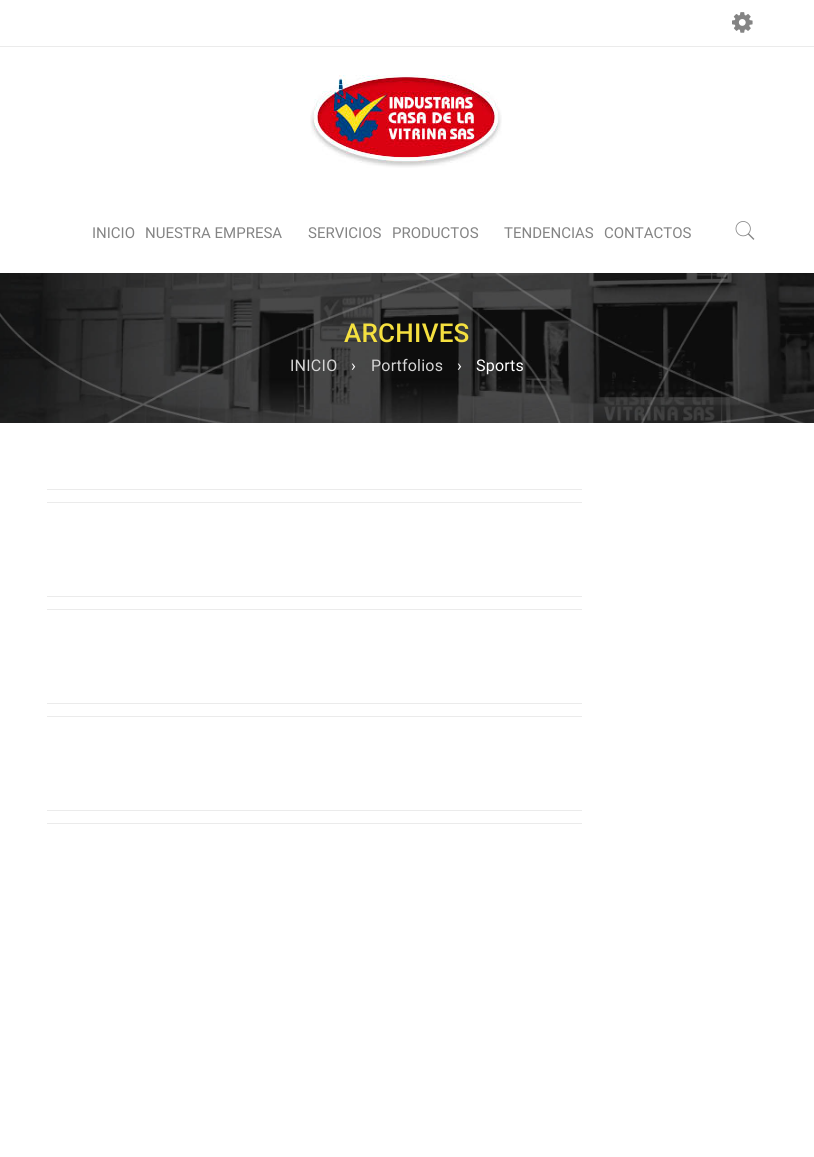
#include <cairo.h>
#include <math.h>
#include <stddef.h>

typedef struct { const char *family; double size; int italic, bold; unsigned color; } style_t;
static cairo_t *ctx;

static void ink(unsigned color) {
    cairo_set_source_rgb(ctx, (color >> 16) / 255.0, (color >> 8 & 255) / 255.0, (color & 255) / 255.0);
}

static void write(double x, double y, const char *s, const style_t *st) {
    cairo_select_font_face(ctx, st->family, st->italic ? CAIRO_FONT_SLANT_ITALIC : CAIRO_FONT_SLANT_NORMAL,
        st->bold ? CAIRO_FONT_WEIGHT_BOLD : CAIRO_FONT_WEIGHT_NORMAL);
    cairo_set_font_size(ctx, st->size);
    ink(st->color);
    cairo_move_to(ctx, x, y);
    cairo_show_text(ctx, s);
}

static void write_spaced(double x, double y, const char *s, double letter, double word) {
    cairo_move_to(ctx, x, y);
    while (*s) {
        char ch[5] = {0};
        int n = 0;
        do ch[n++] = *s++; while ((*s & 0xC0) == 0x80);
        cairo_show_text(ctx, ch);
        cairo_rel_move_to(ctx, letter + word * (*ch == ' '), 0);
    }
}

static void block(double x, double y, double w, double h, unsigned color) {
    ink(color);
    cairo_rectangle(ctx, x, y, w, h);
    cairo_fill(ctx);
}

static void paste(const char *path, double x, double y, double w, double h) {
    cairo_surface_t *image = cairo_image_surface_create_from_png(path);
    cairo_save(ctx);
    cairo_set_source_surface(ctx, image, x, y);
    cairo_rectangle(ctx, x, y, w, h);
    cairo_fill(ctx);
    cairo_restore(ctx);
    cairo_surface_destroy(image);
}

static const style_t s1 = {"Roboto", 15, 0, 0, 0x848484};

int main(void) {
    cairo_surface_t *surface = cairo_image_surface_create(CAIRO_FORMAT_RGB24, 814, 1157);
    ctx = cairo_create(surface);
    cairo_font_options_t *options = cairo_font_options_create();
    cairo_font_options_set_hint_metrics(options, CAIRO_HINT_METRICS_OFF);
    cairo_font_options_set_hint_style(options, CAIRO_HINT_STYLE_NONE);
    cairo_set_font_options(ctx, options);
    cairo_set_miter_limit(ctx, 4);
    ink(0xffffff);
    cairo_paint(ctx);
    block(0, 46, 814, 1, 0xebebeb);
    paste("pic1.png", 732, 12, 21, 21);
    paste("pic2.png", 310, 75, 192, 93);
    write(92, 238, "INICIO", &s1);
    write(145, 238, "NUESTRA EMPRESA", &s1);
    write(308, 238, "SERVICIOS", &s1);
    write(392, 238, "PRODUCTOS", &s1);
    write(504, 238, "TENDENCIAS", &s1);
    write(604, 238, "CONTACTOS", &s1);
    paste("pic3.png", 735, 221, 20, 19);
    paste("pic4.png", 0, 273, 814, 150);
    cairo_select_font_face(ctx, "Roboto Medium", CAIRO_FONT_SLANT_NORMAL, CAIRO_FONT_WEIGHT_NORMAL);
    cairo_set_font_size(ctx, 26);
    ink(0xf5e03f);
    write_spaced(344, 342, "ARCHIVES", 0.25, 0);
    cairo_select_font_face(ctx, "Roboto", CAIRO_FONT_SLANT_NORMAL, CAIRO_FONT_WEIGHT_NORMAL);
    cairo_set_font_size(ctx, 16);
    ink(0xd5d5d5);
    write_spaced(290, 371, "INICIO", 0.25, 0);
    ink(0xffffff);
    write_spaced(351, 371, "›", 0.25, 0);
    ink(0xd5d5d5);
    write_spaced(371, 371, "Portfolios", 0.25, 0);
    ink(0xffffff);
    write_spaced(457, 371, "›", 0.25, 0);
    write_spaced(476, 371, "Sports", 0.25, 0);
    block(47, 489, 535, 1, 0xebebeb);
    block(47, 502, 535, 1, 0xebebeb);
    block(47, 596, 535, 1, 0xebebeb);
    block(47, 609, 535, 1, 0xebebeb);
    block(47, 703, 535, 1, 0xebebeb);
    block(47, 716, 535, 1, 0xebebeb);
    block(47, 810, 535, 1, 0xebebeb);
    block(47, 823, 535, 1, 0xebebeb);
    cairo_surface_write_to_png(surface, "screenshot.png");
    cairo_font_options_destroy(options);
    cairo_destroy(ctx);
    cairo_surface_destroy(surface);
    return 0;
}
